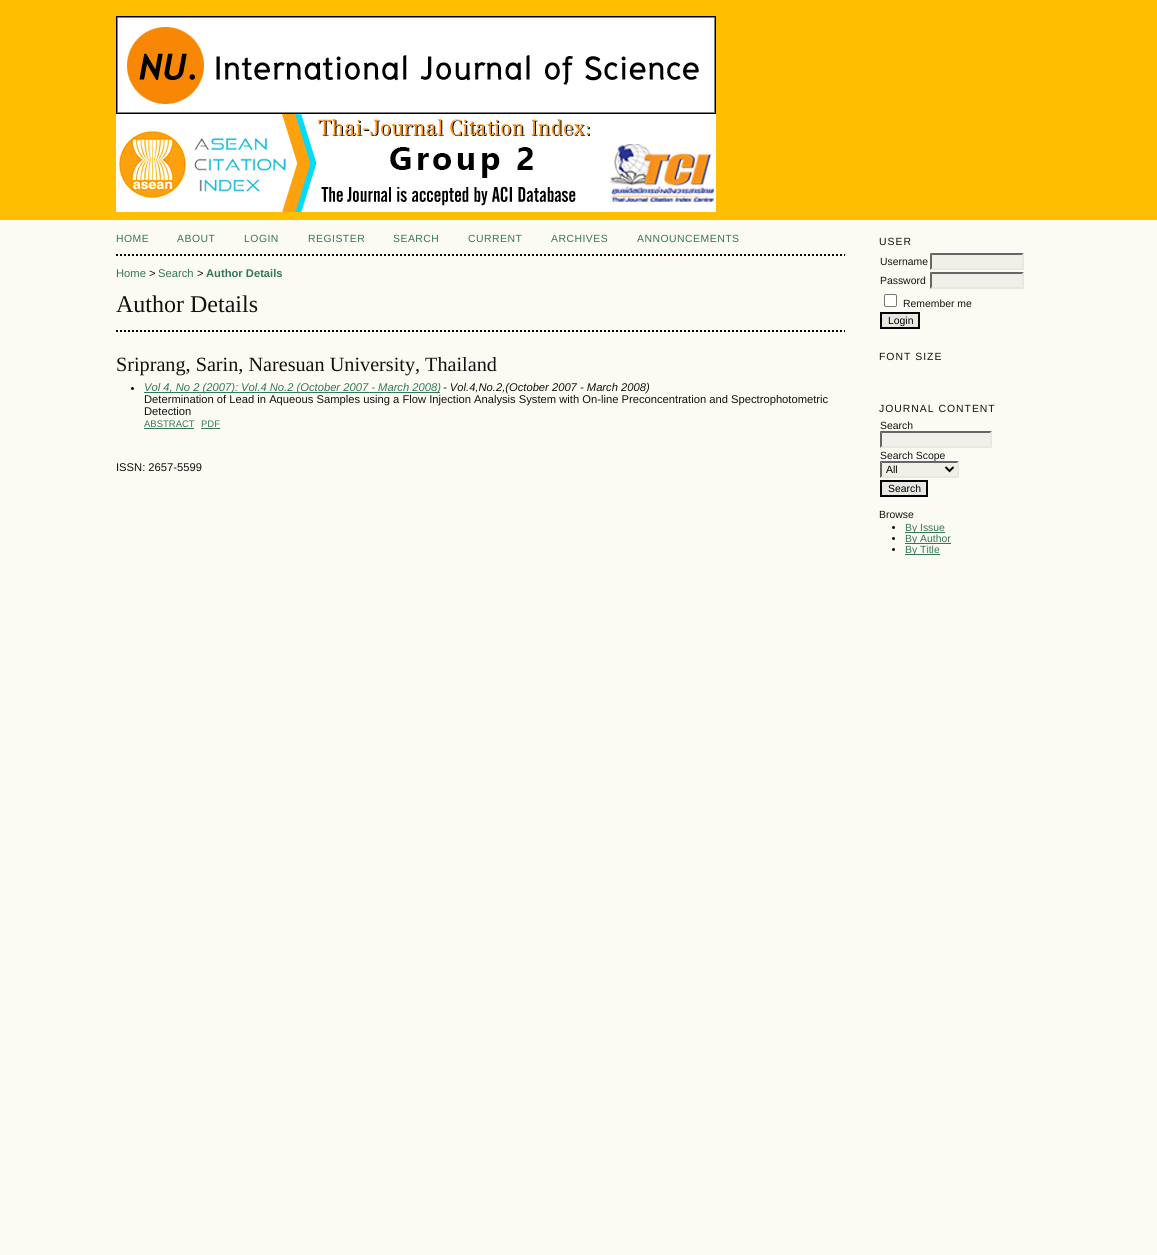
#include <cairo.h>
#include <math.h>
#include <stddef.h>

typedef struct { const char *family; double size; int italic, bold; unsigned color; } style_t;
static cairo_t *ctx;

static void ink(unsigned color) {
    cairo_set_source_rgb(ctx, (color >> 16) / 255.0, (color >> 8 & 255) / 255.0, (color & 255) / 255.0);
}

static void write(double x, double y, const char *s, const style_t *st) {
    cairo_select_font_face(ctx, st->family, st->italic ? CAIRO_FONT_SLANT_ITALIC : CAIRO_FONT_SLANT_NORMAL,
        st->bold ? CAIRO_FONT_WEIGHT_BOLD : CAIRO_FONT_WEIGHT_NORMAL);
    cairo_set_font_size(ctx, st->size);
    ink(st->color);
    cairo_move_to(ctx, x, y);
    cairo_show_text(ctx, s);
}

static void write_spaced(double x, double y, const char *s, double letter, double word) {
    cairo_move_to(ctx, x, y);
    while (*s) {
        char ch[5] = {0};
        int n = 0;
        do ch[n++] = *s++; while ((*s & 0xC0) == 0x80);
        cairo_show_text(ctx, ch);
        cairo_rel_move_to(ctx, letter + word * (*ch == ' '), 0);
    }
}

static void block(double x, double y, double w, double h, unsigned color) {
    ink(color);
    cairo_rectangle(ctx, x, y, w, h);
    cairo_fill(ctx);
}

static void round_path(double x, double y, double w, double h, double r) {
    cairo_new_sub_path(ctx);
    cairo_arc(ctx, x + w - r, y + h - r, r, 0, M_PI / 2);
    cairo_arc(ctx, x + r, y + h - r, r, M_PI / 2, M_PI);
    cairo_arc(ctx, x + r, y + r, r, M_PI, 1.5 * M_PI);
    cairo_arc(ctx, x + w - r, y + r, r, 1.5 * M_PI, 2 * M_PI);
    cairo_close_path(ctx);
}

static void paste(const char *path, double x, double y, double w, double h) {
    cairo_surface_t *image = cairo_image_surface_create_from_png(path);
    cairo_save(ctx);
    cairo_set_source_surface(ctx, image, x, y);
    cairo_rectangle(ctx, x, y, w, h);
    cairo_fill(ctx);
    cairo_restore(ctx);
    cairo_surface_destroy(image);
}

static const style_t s1 = {"Liberation Sans", 11.2, 0, 0, 0x337755};
static const style_t s2 = {"Liberation Sans", 11.2, 0, 0, 0x111111};
static const style_t s3 = {"Liberation Sans", 11.2, 0, 1, 0x337755};
static const style_t s4 = {"Liberation Serif", 24, 0, 0, 0x111111};
static const style_t s5 = {"Liberation Serif", 20.2, 0, 0, 0x111111};
static const style_t s6 = {"Liberation Sans", 11.2, 1, 0, 0x337755};
static const style_t s7 = {"Liberation Sans", 11.2, 1, 0, 0x111111};
static const style_t s8 = {"Liberation Sans", 9.5, 0, 0, 0x337755};
static const style_t s9 = {"Liberation Sans", 10.4, 0, 0, 0x111111};
static const style_t s10 = {"Liberation Sans", 10.4, 0, 0, 0x000000};
static const style_t s11 = {"Liberation Sans", 10.4, 0, 0, 0x337755};

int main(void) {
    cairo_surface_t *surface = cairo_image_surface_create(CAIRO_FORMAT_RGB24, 1157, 1255);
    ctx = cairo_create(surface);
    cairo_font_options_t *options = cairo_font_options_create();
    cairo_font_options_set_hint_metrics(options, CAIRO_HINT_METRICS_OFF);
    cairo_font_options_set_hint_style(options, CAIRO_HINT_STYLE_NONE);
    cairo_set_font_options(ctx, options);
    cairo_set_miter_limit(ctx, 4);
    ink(0xfbfbf3);
    cairo_paint(ctx);
    block(0, 0, 1157, 220, 0xffbf00);
    paste("pic1.png", 116, 16, 600, 98);
    paste("pic2.png", 116, 114, 600, 98);
    cairo_new_path(ctx);
    cairo_move_to(ctx, 116, 255);
    cairo_line_to(ctx, 845, 255);
    ink(0x000000);
    cairo_set_dash(ctx, (double[]){2, 2}, 2, 0);
    cairo_stroke(ctx);
    cairo_select_font_face(ctx, "Liberation Sans", CAIRO_FONT_SLANT_NORMAL, CAIRO_FONT_WEIGHT_NORMAL);
    cairo_set_font_size(ctx, 10.4);
    ink(0x337755);
    write_spaced(116, 242, "HOME", 0.5, 0);
    write_spaced(177, 242, "ABOUT", 0.5, 0);
    write_spaced(244, 242, "LOGIN", 0.5, 0);
    write_spaced(308, 242, "REGISTER", 0.5, 0);
    write_spaced(393, 242, "SEARCH", 0.5, 0);
    write_spaced(468, 242, "CURRENT", 0.5, 0);
    write_spaced(551, 242, "ARCHIVES", 0.5, 0);
    write_spaced(637, 242, "ANNOUNCEMENTS", 0.5, 0);
    write(116, 277, "Home", &s1);
    write(149, 277, ">", &s2);
    write(158, 277, "Search", &s1);
    write(197, 277, ">", &s2);
    write(206, 277, "Author Details", &s3);
    write(116, 312, "Author Details", &s4);
    cairo_new_path(ctx);
    cairo_move_to(ctx, 116, 331);
    cairo_line_to(ctx, 845, 331);
    ink(0x000000);
    cairo_stroke(ctx);
    write(116, 371, "Sriprang, Sarin, Naresuan University, Thailand", &s5);
    cairo_new_path(ctx);
    cairo_arc(ctx, 132.5, 388.5, 1.5, 0, 2 * M_PI);
    cairo_fill(ctx);
    block(144, 392, 296, 1, 0x337755);
    write(144, 391, "Vol 4, No 2 (2007): Vol.4 No.2 (October 2007 - March 2008)", &s6);
    write(443, 391, "- Vol.4,No.2,(October 2007 - March 2008)", &s7);
    write(144, 403, "Determination of Lead in Aqueous Samples using a Flow Injection Analysis System with On-line Preconcentration and Spectrophotometric", &s2);
    write(144, 415, "Detection", &s2);
    write(144, 427, "ABSTRACT", &s8);
    block(144, 428, 50, 1, 0x337755);
    write(201, 427, "PDF", &s8);
    block(201, 428, 19, 1, 0x337755);
    write(116, 471, "ISSN: 2657-5599", &s2);
    cairo_set_font_size(ctx, 10.4);
    write_spaced(879, 245, "USER", 1, 0);
    write(880, 265, "Username", &s9);
    block(930, 253, 94, 17, 0xf0f0e8);
    ink(0x666666);
    cairo_new_path(ctx);
    cairo_move_to(ctx, 930, 253);
    cairo_line_to(ctx, 1024, 253);
    cairo_line_to(ctx, 1022, 255);
    cairo_line_to(ctx, 932, 255);
    cairo_close_path(ctx);
    cairo_fill(ctx);
    ink(0xe8e8e1);
    cairo_new_path(ctx);
    cairo_move_to(ctx, 1024, 253);
    cairo_line_to(ctx, 1024, 270);
    cairo_line_to(ctx, 1022, 268);
    cairo_line_to(ctx, 1022, 255);
    cairo_close_path(ctx);
    cairo_fill(ctx);
    cairo_new_path(ctx);
    cairo_move_to(ctx, 1024, 270);
    cairo_line_to(ctx, 930, 270);
    cairo_line_to(ctx, 932, 268);
    cairo_line_to(ctx, 1022, 268);
    cairo_close_path(ctx);
    cairo_fill(ctx);
    ink(0x666666);
    cairo_new_path(ctx);
    cairo_move_to(ctx, 930, 270);
    cairo_line_to(ctx, 930, 253);
    cairo_line_to(ctx, 932, 255);
    cairo_line_to(ctx, 932, 268);
    cairo_close_path(ctx);
    cairo_fill(ctx);
    write(880, 284, "Password", &s9);
    block(930, 272, 94, 17, 0xf0f0e8);
    ink(0x666666);
    cairo_new_path(ctx);
    cairo_move_to(ctx, 930, 272);
    cairo_line_to(ctx, 1024, 272);
    cairo_line_to(ctx, 1022, 274);
    cairo_line_to(ctx, 932, 274);
    cairo_close_path(ctx);
    cairo_fill(ctx);
    ink(0xe8e8e1);
    cairo_new_path(ctx);
    cairo_move_to(ctx, 1024, 272);
    cairo_line_to(ctx, 1024, 289);
    cairo_line_to(ctx, 1022, 287);
    cairo_line_to(ctx, 1022, 274);
    cairo_close_path(ctx);
    cairo_fill(ctx);
    cairo_new_path(ctx);
    cairo_move_to(ctx, 1024, 289);
    cairo_line_to(ctx, 930, 289);
    cairo_line_to(ctx, 932, 287);
    cairo_line_to(ctx, 1022, 287);
    cairo_close_path(ctx);
    cairo_fill(ctx);
    ink(0x666666);
    cairo_new_path(ctx);
    cairo_move_to(ctx, 930, 289);
    cairo_line_to(ctx, 930, 272);
    cairo_line_to(ctx, 932, 274);
    cairo_line_to(ctx, 932, 287);
    cairo_close_path(ctx);
    cairo_fill(ctx);
    ink(0xffffff);
    round_path(884.5, 294.5, 12, 12, 1.5);
    cairo_fill_preserve(ctx);
    ink(0x767676);
    cairo_set_line_width(ctx, 1);
    cairo_set_dash(ctx, NULL, 0, 0);
    cairo_stroke(ctx);
    write(903, 307, "Remember me", &s9);
    ink(0xe8e8e1);
    cairo_rectangle(ctx, 881, 313, 38, 15);
    cairo_fill_preserve(ctx);
    ink(0x000000);
    cairo_set_line_width(ctx, 2);
    cairo_stroke(ctx);
    write(888, 324, "Login", &s10);
    ink(0x111111);
    write_spaced(879, 360, "FONT SIZE", 1, 0);
    write_spaced(879, 412, "JOURNAL CONTENT", 1, 0);
    write(880, 429, "Search", &s9);
    block(880, 431, 112, 17, 0xf0f0e8);
    ink(0x666666);
    cairo_new_path(ctx);
    cairo_move_to(ctx, 880, 431);
    cairo_line_to(ctx, 992, 431);
    cairo_line_to(ctx, 990, 433);
    cairo_line_to(ctx, 882, 433);
    cairo_close_path(ctx);
    cairo_fill(ctx);
    ink(0xe8e8e1);
    cairo_new_path(ctx);
    cairo_move_to(ctx, 992, 431);
    cairo_line_to(ctx, 992, 448);
    cairo_line_to(ctx, 990, 446);
    cairo_line_to(ctx, 990, 433);
    cairo_close_path(ctx);
    cairo_fill(ctx);
    cairo_new_path(ctx);
    cairo_move_to(ctx, 992, 448);
    cairo_line_to(ctx, 880, 448);
    cairo_line_to(ctx, 882, 446);
    cairo_line_to(ctx, 990, 446);
    cairo_close_path(ctx);
    cairo_fill(ctx);
    ink(0x666666);
    cairo_new_path(ctx);
    cairo_move_to(ctx, 880, 448);
    cairo_line_to(ctx, 880, 431);
    cairo_line_to(ctx, 882, 433);
    cairo_line_to(ctx, 882, 446);
    cairo_close_path(ctx);
    cairo_fill(ctx);
    write(880, 459, "Search Scope", &s9);
    block(880, 461, 79, 17, 0xf0f0e8);
    ink(0x666666);
    cairo_new_path(ctx);
    cairo_move_to(ctx, 880, 461);
    cairo_line_to(ctx, 959, 461);
    cairo_line_to(ctx, 957, 463);
    cairo_line_to(ctx, 882, 463);
    cairo_close_path(ctx);
    cairo_fill(ctx);
    ink(0xe8e8e1);
    cairo_new_path(ctx);
    cairo_move_to(ctx, 959, 461);
    cairo_line_to(ctx, 959, 478);
    cairo_line_to(ctx, 957, 476);
    cairo_line_to(ctx, 957, 463);
    cairo_close_path(ctx);
    cairo_fill(ctx);
    cairo_new_path(ctx);
    cairo_move_to(ctx, 959, 478);
    cairo_line_to(ctx, 880, 478);
    cairo_line_to(ctx, 882, 476);
    cairo_line_to(ctx, 957, 476);
    cairo_close_path(ctx);
    cairo_fill(ctx);
    ink(0x666666);
    cairo_new_path(ctx);
    cairo_move_to(ctx, 880, 478);
    cairo_line_to(ctx, 880, 461);
    cairo_line_to(ctx, 882, 463);
    cairo_line_to(ctx, 882, 476);
    cairo_close_path(ctx);
    cairo_fill(ctx);
    cairo_new_path(ctx);
    cairo_move_to(ctx, 945.5, 467);
    cairo_line_to(ctx, 949.5, 471);
    cairo_line_to(ctx, 953.5, 467);
    ink(0x000000);
    cairo_stroke(ctx);
    write(886, 473, "All", &s10);
    ink(0xe8e8e1);
    cairo_rectangle(ctx, 881, 481, 46, 15);
    cairo_fill_preserve(ctx);
    ink(0x000000);
    cairo_stroke(ctx);
    write(888, 492, "Search", &s10);
    write(879, 518, "Browse", &s9);
    cairo_new_path(ctx);
    cairo_arc(ctx, 893.5, 527.5, 1.5, 0, 2 * M_PI);
    cairo_fill(ctx);
    block(905, 532, 40, 1, 0x337755);
    write(905, 531, "By Issue", &s11);
    ink(0x111111);
    cairo_new_path(ctx);
    cairo_arc(ctx, 893.5, 538.5, 1.5, 0, 2 * M_PI);
    cairo_fill(ctx);
    block(905, 543, 46, 1, 0x337755);
    write(905, 542, "By Author", &s11);
    ink(0x111111);
    cairo_new_path(ctx);
    cairo_arc(ctx, 893.5, 549.5, 1.5, 0, 2 * M_PI);
    cairo_fill(ctx);
    block(905, 554, 35, 1, 0x337755);
    write(905, 553, "By Title", &s11);
    cairo_surface_write_to_png(surface, "screenshot.png");
    cairo_font_options_destroy(options);
    cairo_destroy(ctx);
    cairo_surface_destroy(surface);
    return 0;
}
